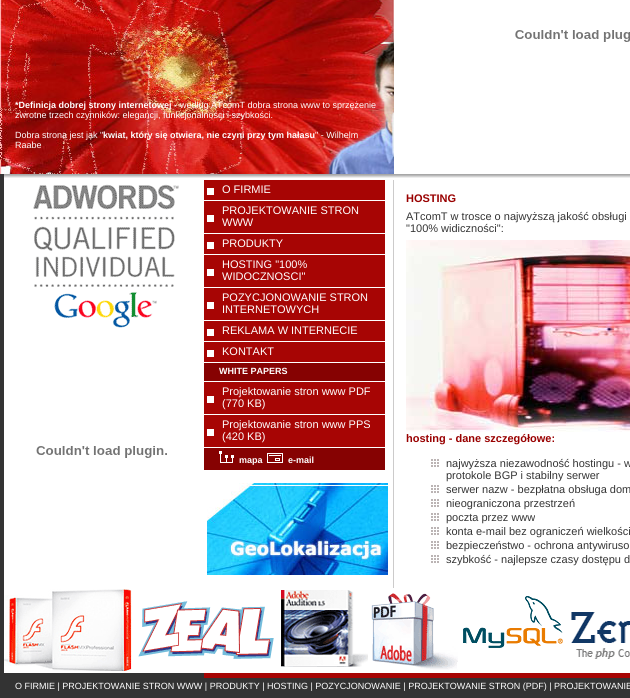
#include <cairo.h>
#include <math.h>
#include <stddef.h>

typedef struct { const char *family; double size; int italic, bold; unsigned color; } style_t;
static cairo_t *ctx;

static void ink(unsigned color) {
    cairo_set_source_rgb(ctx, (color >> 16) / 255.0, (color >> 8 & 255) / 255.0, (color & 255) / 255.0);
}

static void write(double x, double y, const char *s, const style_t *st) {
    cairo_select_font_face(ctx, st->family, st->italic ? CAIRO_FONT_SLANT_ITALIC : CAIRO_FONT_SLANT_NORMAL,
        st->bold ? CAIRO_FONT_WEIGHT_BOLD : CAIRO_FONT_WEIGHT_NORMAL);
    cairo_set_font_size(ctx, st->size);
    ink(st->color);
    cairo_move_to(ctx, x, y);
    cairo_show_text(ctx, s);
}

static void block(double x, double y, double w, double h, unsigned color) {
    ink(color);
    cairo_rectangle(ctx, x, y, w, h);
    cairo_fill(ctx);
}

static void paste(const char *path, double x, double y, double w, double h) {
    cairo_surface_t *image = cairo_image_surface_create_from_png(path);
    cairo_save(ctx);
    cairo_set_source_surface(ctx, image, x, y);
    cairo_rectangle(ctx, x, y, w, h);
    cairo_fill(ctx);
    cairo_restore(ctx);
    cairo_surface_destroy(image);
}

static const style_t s1 = {"Liberation Sans", 9, 0, 1, 0xffffff};
static const style_t s2 = {"Liberation Sans", 9, 0, 0, 0xffffff};
static const style_t s3 = {"Liberation Sans", 11, 0, 0, 0xffffff};
static const style_t s4 = {"Liberation Sans", 11, 0, 1, 0x990000};
static const style_t s5 = {"Liberation Sans", 11, 0, 0, 0x343434};

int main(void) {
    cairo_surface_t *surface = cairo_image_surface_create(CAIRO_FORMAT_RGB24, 630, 698);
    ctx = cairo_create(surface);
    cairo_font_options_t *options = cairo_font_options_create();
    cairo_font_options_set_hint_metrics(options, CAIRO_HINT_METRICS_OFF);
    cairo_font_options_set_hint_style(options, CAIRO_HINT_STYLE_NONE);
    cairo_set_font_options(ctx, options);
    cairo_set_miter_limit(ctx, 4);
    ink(0xffffff);
    cairo_paint(ctx);
    paste("pic1.png", 515, 30, 115, 12);
    paste("pic2.png", 0, 0, 394, 174);
    write(15, 108, "*Definicja dobrej strony internetowej -", &s1);
    write(180, 108, "według ATcomT dobra strona www to sprzężenie", &s2);
    write(15, 118, "zwrotne trzech czynników: elegancji, funkcjonalności i szybkości.", &s2);
    write(15, 138, "Dobra strona jest jak \"", &s2);
    write(103, 138, "kwiat, który się otwiera, nie czyni przy tym hałasu", &s1);
    write(315, 138, "\" - Wilhelm", &s2);
    write(15, 148, "Raabe", &s2);
    block(0, 174, 4, 499, 0x333333);
    paste("pic3.png", 4, 174, 626, 4);
    paste("pic4.png", 33, 184, 146, 144);
    paste("pic5.png", 36, 446, 131, 12);
    block(204, 180, 181, 20, 0xa70504);
    block(207, 188, 7, 7, 0xffffff);
    write(222, 193, "O FIRMIE", &s3);
    block(204, 201, 181, 32, 0xa70504);
    block(207, 215, 7, 7, 0xffffff);
    write(222, 214, "PROJEKTOWANIE STRON", &s3);
    write(222, 226, "WWW", &s3);
    block(204, 234, 181, 20, 0xa70504);
    block(207, 242, 7, 7, 0xffffff);
    write(222, 247, "PRODUKTY", &s3);
    block(204, 255, 181, 32, 0xa70504);
    block(207, 269, 7, 7, 0xffffff);
    write(222, 268, "HOSTING \"100%", &s3);
    write(222, 280, "WIDOCZNOSCI\"", &s3);
    block(204, 288, 181, 32, 0xa70504);
    block(207, 302, 7, 7, 0xffffff);
    write(222, 301, "POZYCJONOWANIE STRON", &s3);
    write(222, 313, "INTERNETOWYCH", &s3);
    block(204, 321, 181, 20, 0xa70504);
    block(207, 329, 7, 7, 0xffffff);
    write(222, 334, "REKLAMA W INTERNECIE", &s3);
    block(204, 342, 181, 20, 0xa70504);
    block(207, 350, 7, 7, 0xffffff);
    write(222, 355, "KONTAKT", &s3);
    block(204, 363, 181, 18, 0x860202);
    write(219, 374, "WHITE PAPERS", &s1);
    block(204, 382, 181, 32, 0xa70504);
    block(207, 396, 7, 7, 0xffffff);
    write(222, 395, "Projektowanie stron www PDF", &s3);
    write(222, 407, "(770 KB)", &s3);
    block(204, 415, 181, 32, 0xa70504);
    block(207, 429, 7, 7, 0xffffff);
    write(222, 428, "Projektowanie stron www PPS", &s3);
    write(222, 440, "(420 KB)", &s3);
    block(204, 448, 181, 22, 0x860202);
    paste("pic6.png", 219, 451, 15, 12);
    write(239, 463, "mapa", &s1);
    paste("pic7.png", 267, 453, 16, 10);
    write(288, 463, "e-mail", &s1);
    paste("pic8.png", 207, 483, 181, 92);
    block(393, 180, 1, 408, 0xcccbcb);
    write(406, 202, "HOSTING", &s4);
    write(406, 220, "ATcomT w trosce o najwyższą jakość obsługi", &s5);
    write(406, 232, "\"100% widiczności\":", &s5);
    paste("pic9.png", 406, 240, 224, 192);
    write(406, 442, "hosting - dane szczegółowe:", &s4);
    paste("pic10.png", 431, 459, 8, 8);
    write(446, 467, "najwyższa niezawodność hostingu - w", &s5);
    write(446, 479, "protokole BGP i stabilny serwer", &s5);
    paste("pic10.png", 431, 485, 8, 8);
    write(446, 493, "serwer nazw - bezpłatna obsługa dom", &s5);
    paste("pic10.png", 431, 499, 8, 8);
    write(446, 507, "nieograniczona przestrzeń", &s5);
    paste("pic10.png", 431, 513, 8, 8);
    write(446, 521, "poczta przez www", &s5);
    paste("pic10.png", 431, 527, 8, 8);
    write(446, 535, "konta e-mail bez ograniczeń wielkości", &s5);
    paste("pic10.png", 431, 541, 8, 8);
    write(446, 549, "bezpieczeństwo - ochrona antywiruso", &s5);
    paste("pic10.png", 431, 555, 8, 8);
    write(446, 563, "szybkość - najlepsze czasy dostępu d", &s5);
    paste("pic11.png", 4, 589, 128, 82);
    paste("pic12.png", 138, 601, 136, 58);
    paste("pic13.png", 281, 590, 87, 77);
    paste("pic14.png", 371, 593, 87, 77);
    paste("pic15.png", 463, 596, 100, 52);
    paste("pic16.png", 571, 612, 59, 47);
    block(0, 673, 204, 5, 0x333333);
    block(204, 673, 426, 5, 0xa70504);
    block(0, 678, 630, 20, 0x333333);
    write(15, 689, "O FIRMIE | PROJEKTOWANIE STRON WWW | PRODUKTY | HOSTING | POZYCJONOWANIE | PROJEKTOWANIE STRON (PDF) | PROJEKTOWANIE", &s2);
    cairo_surface_write_to_png(surface, "screenshot.png");
    cairo_font_options_destroy(options);
    cairo_destroy(ctx);
    cairo_surface_destroy(surface);
    return 0;
}
